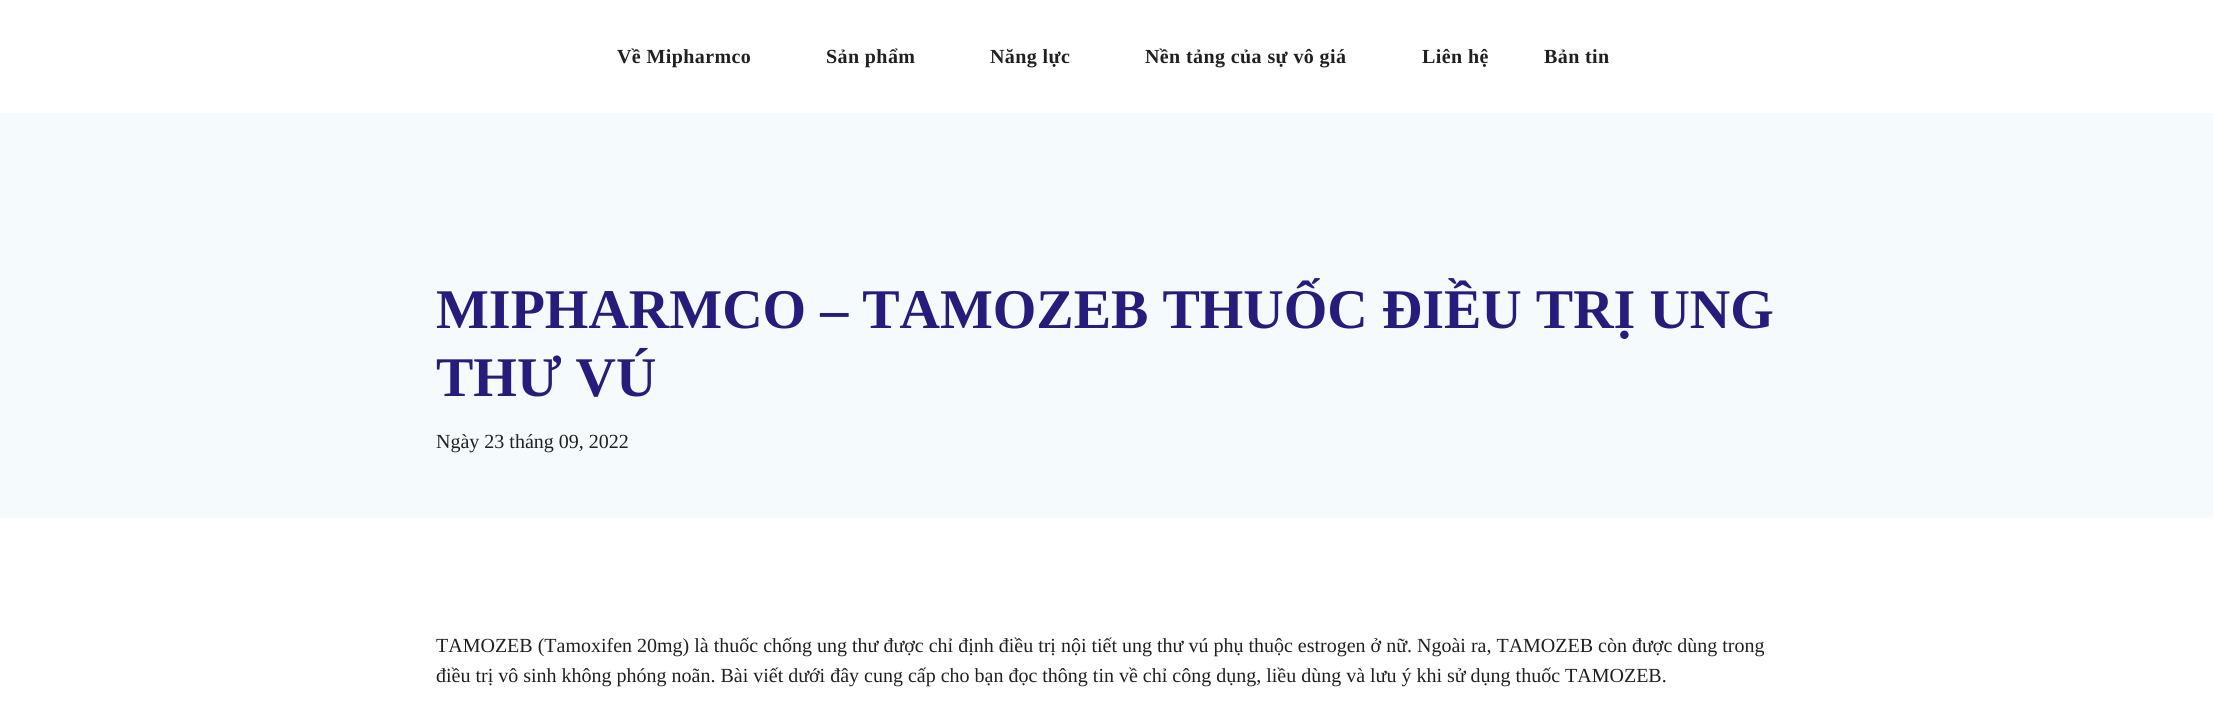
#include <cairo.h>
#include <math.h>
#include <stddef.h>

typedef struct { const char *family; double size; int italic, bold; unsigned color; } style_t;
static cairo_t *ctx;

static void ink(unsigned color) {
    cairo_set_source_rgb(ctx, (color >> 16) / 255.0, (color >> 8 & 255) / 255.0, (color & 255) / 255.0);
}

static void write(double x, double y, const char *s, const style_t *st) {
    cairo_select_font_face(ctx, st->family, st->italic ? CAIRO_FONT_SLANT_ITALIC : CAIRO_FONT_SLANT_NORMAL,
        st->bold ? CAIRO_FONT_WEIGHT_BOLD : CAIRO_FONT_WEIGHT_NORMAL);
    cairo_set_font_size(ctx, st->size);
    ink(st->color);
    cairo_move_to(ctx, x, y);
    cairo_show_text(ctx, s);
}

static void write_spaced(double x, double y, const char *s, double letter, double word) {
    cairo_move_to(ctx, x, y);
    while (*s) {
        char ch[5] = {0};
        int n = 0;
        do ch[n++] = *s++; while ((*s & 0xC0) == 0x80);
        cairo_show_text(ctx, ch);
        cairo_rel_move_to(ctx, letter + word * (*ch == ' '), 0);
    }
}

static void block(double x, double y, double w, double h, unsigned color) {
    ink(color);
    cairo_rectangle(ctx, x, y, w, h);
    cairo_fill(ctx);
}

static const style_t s1 = {"Liberation Serif", 56, 0, 1, 0x261c7c};
static const style_t s2 = {"Liberation Serif", 20, 0, 0, 0x202020};

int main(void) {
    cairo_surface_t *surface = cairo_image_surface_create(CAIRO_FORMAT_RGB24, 2213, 723);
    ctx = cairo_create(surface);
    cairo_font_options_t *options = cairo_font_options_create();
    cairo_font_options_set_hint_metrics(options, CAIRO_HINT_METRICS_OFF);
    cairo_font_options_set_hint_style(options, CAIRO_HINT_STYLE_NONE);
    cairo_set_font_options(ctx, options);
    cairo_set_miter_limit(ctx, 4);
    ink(0xffffff);
    cairo_paint(ctx);
    cairo_select_font_face(ctx, "Liberation Serif", CAIRO_FONT_SLANT_NORMAL, CAIRO_FONT_WEIGHT_BOLD);
    cairo_set_font_size(ctx, 20);
    ink(0x202020);
    write_spaced(617, 63, "Về Mipharmco", 0.4, 0);
    write_spaced(826, 63, "Sản phẩm", 0.4, 0);
    write_spaced(990, 63, "Năng lực", 0.4, 0);
    write_spaced(1145, 63, "Nền tảng của sự vô giá", 0.4, 0);
    write_spaced(1422, 63, "Liên hệ", 0.4, 0);
    write_spaced(1544, 63, "Bản tin", 0.4, 0);
    block(0, 113, 2213, 405, 0xf5fafc);
    write(436, 328, "MIPHARMCO – TAMOZEB THUỐC ĐIỀU TRỊ UNG", &s1);
    write(436, 396, "THƯ VÚ", &s1);
    write(436, 448, "Ngày 23 tháng 09, 2022", &s2);
    write(436, 652, "TAMOZEB (Tamoxifen 20mg) là thuốc chống ung thư được chỉ định điều trị nội tiết ung thư vú phụ thuộc estrogen ở nữ. Ngoài ra, TAMOZEB còn được dùng trong", &s2);
    write(436, 682, "điều trị vô sinh không phóng noãn. Bài viết dưới đây cung cấp cho bạn đọc thông tin về chỉ công dụng, liều dùng và lưu ý khi sử dụng thuốc TAMOZEB.", &s2);
    cairo_surface_write_to_png(surface, "screenshot.png");
    cairo_font_options_destroy(options);
    cairo_destroy(ctx);
    cairo_surface_destroy(surface);
    return 0;
}
